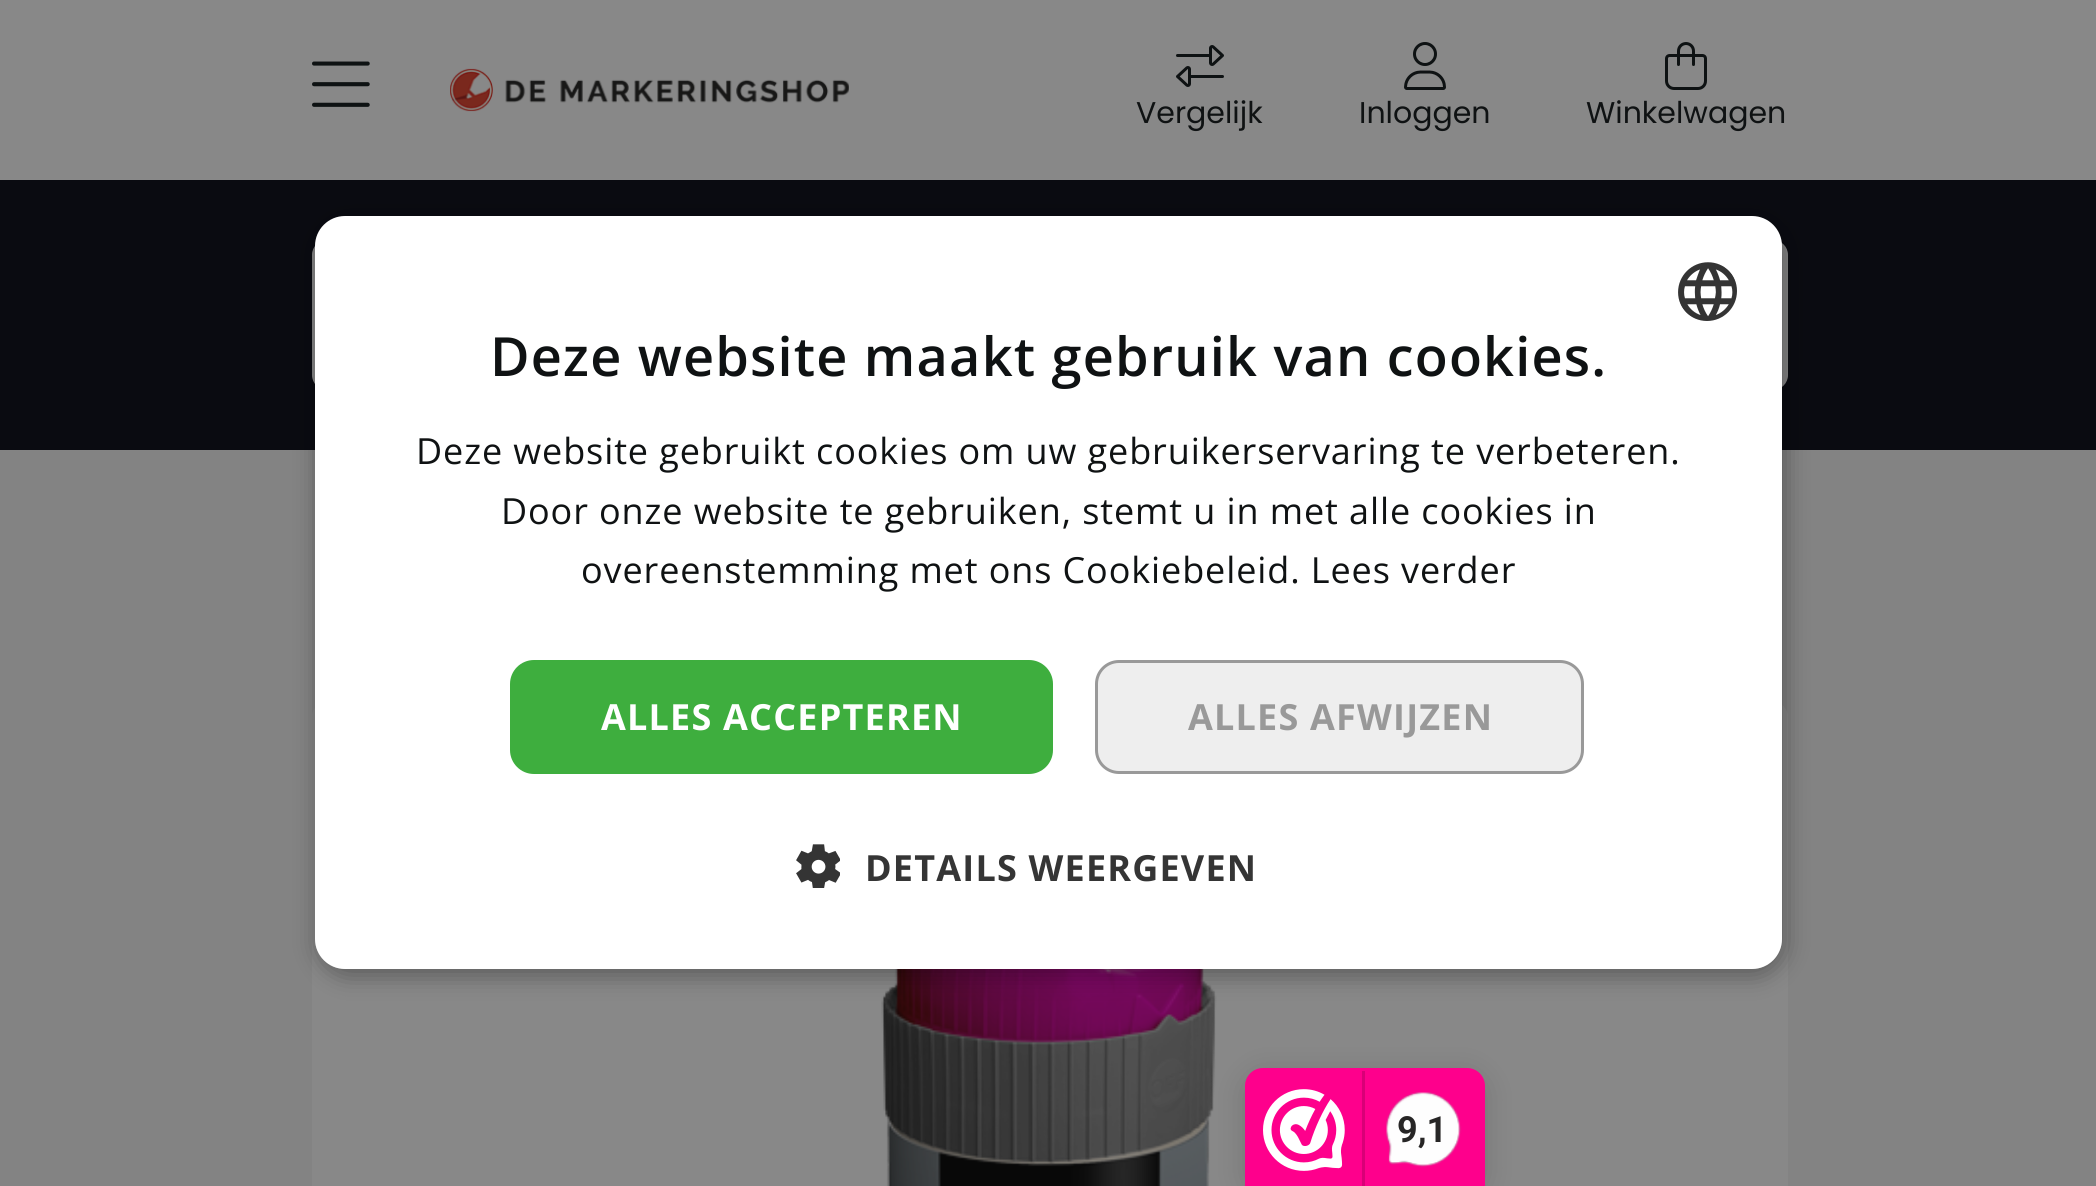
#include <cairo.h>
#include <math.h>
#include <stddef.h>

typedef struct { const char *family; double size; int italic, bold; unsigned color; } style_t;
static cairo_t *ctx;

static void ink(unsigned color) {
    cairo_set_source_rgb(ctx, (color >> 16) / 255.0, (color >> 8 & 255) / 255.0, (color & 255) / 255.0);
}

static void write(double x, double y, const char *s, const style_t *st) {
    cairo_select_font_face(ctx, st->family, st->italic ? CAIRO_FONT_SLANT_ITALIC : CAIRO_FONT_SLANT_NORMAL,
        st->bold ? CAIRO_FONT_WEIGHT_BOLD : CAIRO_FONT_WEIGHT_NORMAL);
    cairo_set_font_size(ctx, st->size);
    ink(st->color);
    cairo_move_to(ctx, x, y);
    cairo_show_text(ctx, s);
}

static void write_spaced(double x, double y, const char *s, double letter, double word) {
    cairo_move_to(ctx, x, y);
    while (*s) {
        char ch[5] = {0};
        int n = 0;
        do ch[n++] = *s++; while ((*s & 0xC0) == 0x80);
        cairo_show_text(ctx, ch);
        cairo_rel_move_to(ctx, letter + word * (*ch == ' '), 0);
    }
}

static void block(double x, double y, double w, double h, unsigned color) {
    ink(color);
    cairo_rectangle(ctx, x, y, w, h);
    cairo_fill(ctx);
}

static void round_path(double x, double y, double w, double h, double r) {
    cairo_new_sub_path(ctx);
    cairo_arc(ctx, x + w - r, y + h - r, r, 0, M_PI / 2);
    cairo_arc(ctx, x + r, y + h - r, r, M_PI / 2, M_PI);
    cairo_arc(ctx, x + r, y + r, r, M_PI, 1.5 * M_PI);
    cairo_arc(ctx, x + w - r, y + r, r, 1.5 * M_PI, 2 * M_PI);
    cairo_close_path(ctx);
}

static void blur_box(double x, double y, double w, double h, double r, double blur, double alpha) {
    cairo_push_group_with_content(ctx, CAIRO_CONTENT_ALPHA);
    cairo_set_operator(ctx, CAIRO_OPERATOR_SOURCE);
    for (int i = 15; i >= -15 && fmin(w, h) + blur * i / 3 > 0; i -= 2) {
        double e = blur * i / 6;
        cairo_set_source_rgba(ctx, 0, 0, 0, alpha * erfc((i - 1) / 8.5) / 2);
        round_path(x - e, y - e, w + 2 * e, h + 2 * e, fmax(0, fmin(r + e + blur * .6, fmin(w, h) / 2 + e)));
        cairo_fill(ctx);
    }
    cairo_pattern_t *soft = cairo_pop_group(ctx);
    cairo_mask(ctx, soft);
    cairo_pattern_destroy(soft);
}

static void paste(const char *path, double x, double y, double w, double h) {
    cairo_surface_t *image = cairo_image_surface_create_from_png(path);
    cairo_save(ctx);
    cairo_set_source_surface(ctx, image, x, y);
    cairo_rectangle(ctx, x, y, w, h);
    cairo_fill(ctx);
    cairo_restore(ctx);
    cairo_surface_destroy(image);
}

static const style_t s1 = {"Poppins", 30, 0, 0, 0x0f1213};
static const style_t s2 = {"Roboto", 36, 0, 1, 0x272626};

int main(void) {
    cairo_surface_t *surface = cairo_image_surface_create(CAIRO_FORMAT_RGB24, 2096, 1186);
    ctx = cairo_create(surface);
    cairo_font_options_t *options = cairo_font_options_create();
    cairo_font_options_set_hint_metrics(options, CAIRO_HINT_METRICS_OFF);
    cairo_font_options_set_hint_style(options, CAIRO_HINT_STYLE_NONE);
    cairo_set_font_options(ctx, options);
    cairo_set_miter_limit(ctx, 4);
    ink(0x838383);
    cairo_paint(ctx);
    block(0, 0, 2096, 180, 0x888888);
    paste("pic1.png", 312, 61, 58, 46);
    paste("pic2.png", 450, 68, 399, 44);
    paste("pic3.png", 1176, 45, 48, 42);
    write(1136, 123, "Vergelijk", &s1);
    paste("pic4.png", 1404, 42, 42, 48);
    write(1359, 123, "Inloggen", &s1);
    paste("pic5.png", 1665, 42, 42, 48);
    write(1586, 123, "Winkelwagen", &s1);
    block(0, 180, 2096, 270, 0x0a0b11);
    ink(0x888888);
    round_path(312, 240, 1476, 150, 15);
    cairo_fill(ctx);
    round_path(312, 702, 1476, 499, 15);
    cairo_fill(ctx);
    paste("pic6.png", 881, 969, 336, 217);
    cairo_save(ctx);
    cairo_set_fill_rule(ctx, CAIRO_FILL_RULE_EVEN_ODD);
    cairo_new_path(ctx);
    cairo_move_to(ctx, 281, 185);
    cairo_line_to(ctx, 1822, 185);
    cairo_line_to(ctx, 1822, 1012);
    cairo_line_to(ctx, 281, 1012);
    cairo_close_path(ctx);
    cairo_move_to(ctx, 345, 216);
    cairo_line_to(ctx, 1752, 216);
    cairo_curve_to(ctx, 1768.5, 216, 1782, 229.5, 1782, 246);
    cairo_line_to(ctx, 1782, 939);
    cairo_curve_to(ctx, 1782, 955.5, 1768.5, 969, 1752, 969);
    cairo_line_to(ctx, 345, 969);
    cairo_curve_to(ctx, 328.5, 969, 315, 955.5, 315, 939);
    cairo_line_to(ctx, 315, 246);
    cairo_curve_to(ctx, 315, 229.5, 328.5, 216, 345, 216);
    cairo_close_path(ctx);
    cairo_clip(ctx);
    ink(0x000000);
    blur_box(318, 222, 1467, 753, 30, 12, 0.35);
    cairo_restore(ctx);
    ink(0xffffff);
    round_path(315, 216, 1467, 753, 30);
    cairo_fill(ctx);
    paste("pic7.png", 1678, 262, 59, 59);
    cairo_select_font_face(ctx, "Open Sans SemiBold", CAIRO_FONT_SLANT_NORMAL, CAIRO_FONT_WEIGHT_NORMAL);
    cairo_set_font_size(ctx, 54);
    ink(0x0f1213);
    write_spaced(490, 376, "Deze website maakt gebruik van cookies.", 1.2, 0);
    cairo_select_font_face(ctx, "Open Sans", CAIRO_FONT_SLANT_NORMAL, CAIRO_FONT_WEIGHT_NORMAL);
    cairo_set_font_size(ctx, 36);
    write_spaced(416, 464, "Deze website gebruikt cookies om uw gebruikerservaring te verbeteren.", 0.9, 0);
    write_spaced(501, 524, "Door onze website te gebruiken, stemt u in met alle cookies in", 0.9, 0);
    write_spaced(581, 583, "overeenstemming met ons Cookiebeleid. Lees verder", 0.9, 0);
    ink(0x3eae3e);
    round_path(510, 660, 543, 114, 24);
    cairo_fill(ctx);
    cairo_select_font_face(ctx, "Open Sans", CAIRO_FONT_SLANT_NORMAL, CAIRO_FONT_WEIGHT_BOLD);
    ink(0xffffff);
    write_spaced(601, 730, "ALLES ACCEPTEREN", 1.2, 0);
    ink(0xeeeeee);
    round_path(1096.5, 661.5, 486, 111, 22.5);
    cairo_fill_preserve(ctx);
    ink(0x999999);
    cairo_set_line_width(ctx, 3);
    cairo_stroke(ctx);
    write_spaced(1188, 730, "ALLES AFWIJZEN", 1.2, 0);
    paste("pic8.png", 796, 844, 44, 44);
    ink(0x353535);
    write_spaced(865, 881, "DETAILS WEERGEVEN", 1.2, 0);
    ink(0x000000);
    blur_box(1245, 1074, 240, 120, 18, 15, 0.15);
    ink(0xfe008c);
    cairo_new_path(ctx);
    cairo_move_to(ctx, 1263, 1068);
    cairo_line_to(ctx, 1467, 1068);
    cairo_curve_to(ctx, 1477, 1068, 1485, 1076, 1485, 1086);
    cairo_line_to(ctx, 1485, 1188);
    cairo_line_to(ctx, 1245, 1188);
    cairo_line_to(ctx, 1245, 1086);
    cairo_curve_to(ctx, 1245, 1076, 1253, 1068, 1263, 1068);
    cairo_close_path(ctx);
    cairo_fill(ctx);
    paste("pic9.png", 1263, 1089, 82, 82);
    block(1362, 1071, 3, 115, 0xd80077);
    paste("pic10.png", 1386, 1092, 76, 76);
    write(1397, 1142, "9,1", &s2);
    cairo_surface_write_to_png(surface, "screenshot.png");
    cairo_font_options_destroy(options);
    cairo_destroy(ctx);
    cairo_surface_destroy(surface);
    return 0;
}
